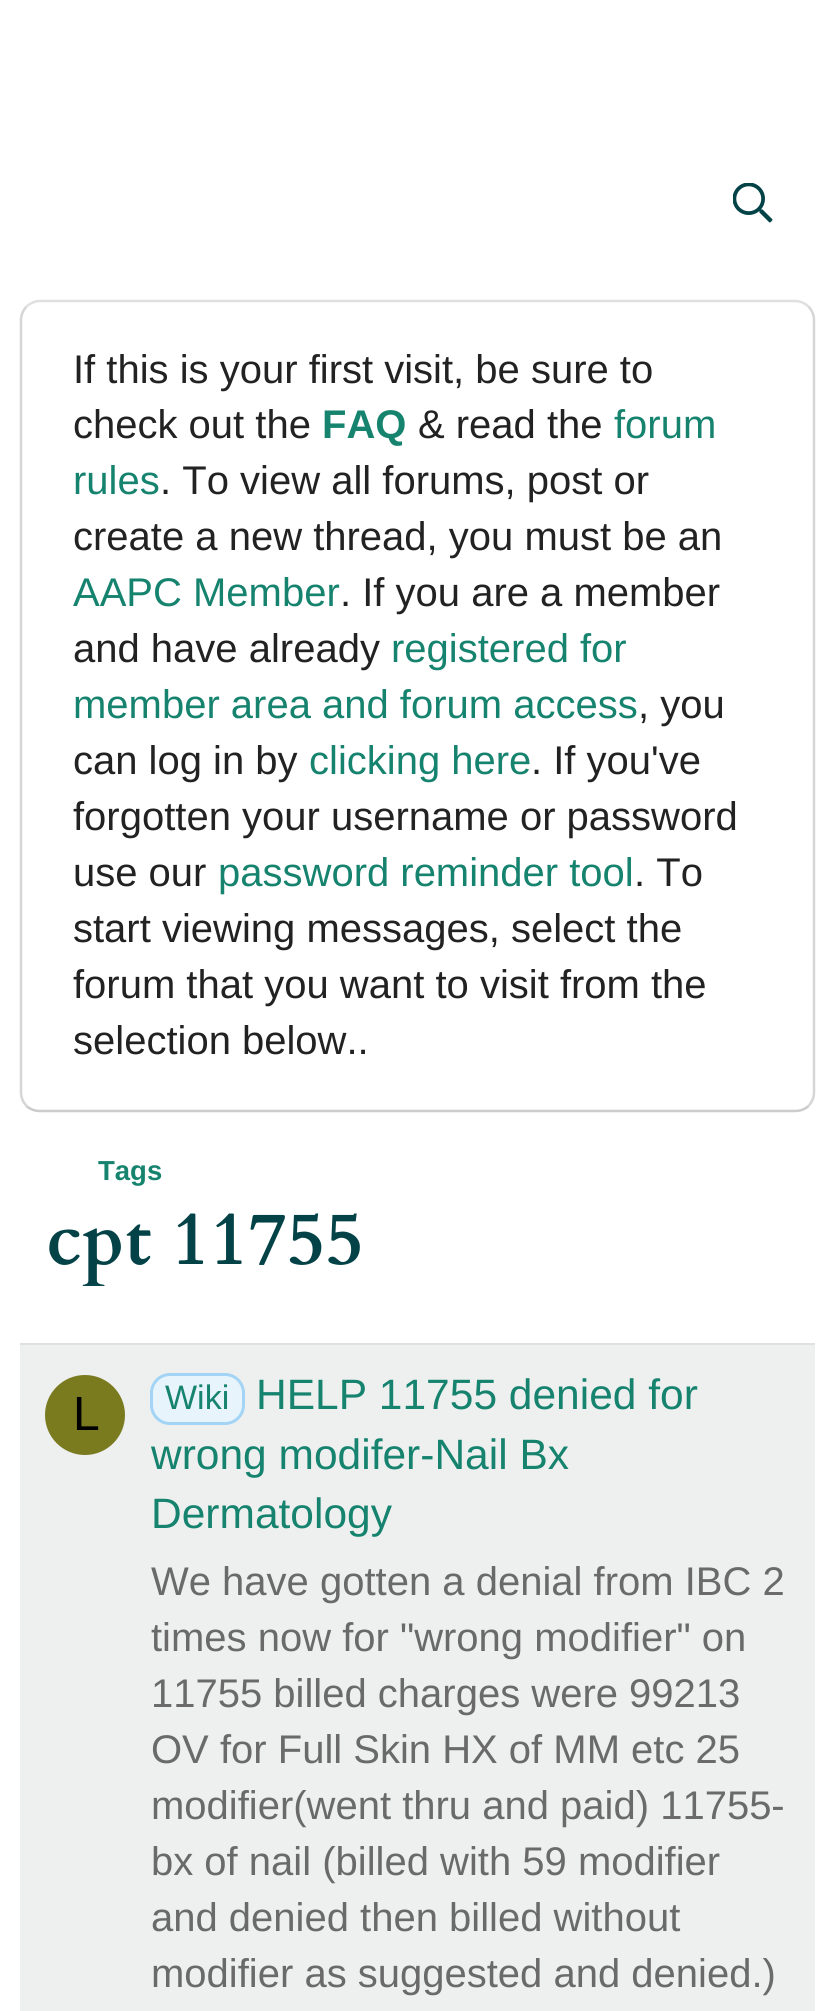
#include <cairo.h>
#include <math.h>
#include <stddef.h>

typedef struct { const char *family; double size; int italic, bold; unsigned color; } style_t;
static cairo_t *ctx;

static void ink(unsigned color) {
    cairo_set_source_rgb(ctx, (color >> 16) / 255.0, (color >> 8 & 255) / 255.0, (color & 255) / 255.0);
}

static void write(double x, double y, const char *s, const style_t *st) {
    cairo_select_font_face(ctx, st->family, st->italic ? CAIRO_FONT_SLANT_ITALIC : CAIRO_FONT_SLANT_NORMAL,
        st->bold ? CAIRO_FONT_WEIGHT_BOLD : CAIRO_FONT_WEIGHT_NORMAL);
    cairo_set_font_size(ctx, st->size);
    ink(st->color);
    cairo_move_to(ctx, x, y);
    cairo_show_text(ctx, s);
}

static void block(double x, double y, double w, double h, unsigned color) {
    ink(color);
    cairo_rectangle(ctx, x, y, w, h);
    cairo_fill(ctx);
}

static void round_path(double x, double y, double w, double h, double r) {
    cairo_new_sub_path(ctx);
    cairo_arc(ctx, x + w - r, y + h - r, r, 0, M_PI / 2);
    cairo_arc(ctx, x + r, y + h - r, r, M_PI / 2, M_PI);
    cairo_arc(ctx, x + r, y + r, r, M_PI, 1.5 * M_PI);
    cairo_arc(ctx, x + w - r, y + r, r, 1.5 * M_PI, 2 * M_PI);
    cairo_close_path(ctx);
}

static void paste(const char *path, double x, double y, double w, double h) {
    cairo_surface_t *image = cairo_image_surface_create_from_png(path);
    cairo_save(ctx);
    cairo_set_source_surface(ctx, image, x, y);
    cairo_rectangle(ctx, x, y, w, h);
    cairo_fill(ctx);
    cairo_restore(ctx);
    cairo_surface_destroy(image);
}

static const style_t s1 = {"Liberation Sans", 40, 0, 0, 0x222222};
static const style_t s2 = {"Liberation Sans", 40, 0, 1, 0x16836f};
static const style_t s3 = {"Liberation Sans", 40, 0, 0, 0x16836f};
static const style_t s4 = {"Liberation Sans", 27.5, 0, 1, 0x16836f};
static const style_t s5 = {"Cardo", 75, 0, 1, 0x034246};
static const style_t s6 = {"Liberation Sans", 48, 0, 0, 0x000000};
static const style_t s7 = {"Liberation Sans", 34, 0, 0, 0x16836f};
static const style_t s8 = {"Liberation Sans", 42.5, 0, 0, 0x16836f};
static const style_t s9 = {"Liberation Sans", 40, 0, 0, 0x6a6a6a};

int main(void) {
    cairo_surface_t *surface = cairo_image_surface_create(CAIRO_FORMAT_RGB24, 834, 2011);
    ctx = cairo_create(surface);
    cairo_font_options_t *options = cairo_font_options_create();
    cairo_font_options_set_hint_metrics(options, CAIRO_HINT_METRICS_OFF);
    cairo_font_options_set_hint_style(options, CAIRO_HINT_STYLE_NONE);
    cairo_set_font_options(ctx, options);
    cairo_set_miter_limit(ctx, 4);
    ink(0xffffff);
    cairo_paint(ctx);
    paste("pic1.png", 733, 183, 40, 40);
    cairo_new_path(ctx);
    cairo_move_to(ctx, 26.5, 306.5);
    cairo_curve_to(ctx, 30.5, 303, 35, 301, 40, 301);
    cairo_line_to(ctx, 795, 301);
    cairo_curve_to(ctx, 800, 301, 804.5, 303, 808.5, 306.5);
    ink(0xe0e0e0);
    cairo_set_line_width(ctx, 2.5);
    cairo_stroke(ctx);
    cairo_new_path(ctx);
    cairo_move_to(ctx, 808.5, 306.5);
    cairo_curve_to(ctx, 812, 310.5, 814, 315, 814, 320);
    cairo_line_to(ctx, 814, 1092.5);
    cairo_curve_to(ctx, 814, 1097.5, 812, 1102, 808.5, 1106);
    ink(0xd6d6d6);
    cairo_stroke(ctx);
    cairo_new_path(ctx);
    cairo_move_to(ctx, 808.5, 1106);
    cairo_curve_to(ctx, 804.5, 1109.5, 800, 1111, 795, 1111);
    cairo_line_to(ctx, 40, 1111);
    cairo_curve_to(ctx, 35, 1111, 30.5, 1109.5, 26.5, 1106);
    ink(0xcccccc);
    cairo_stroke(ctx);
    cairo_new_path(ctx);
    cairo_move_to(ctx, 26.5, 1106);
    cairo_curve_to(ctx, 23, 1102, 21, 1097.5, 21, 1092.5);
    cairo_line_to(ctx, 21, 320);
    cairo_curve_to(ctx, 21, 315, 23, 310.5, 26.5, 306.5);
    ink(0xd6d6d6);
    cairo_stroke(ctx);
    write(73, 383, "If this is your first visit, be sure to", &s1);
    write(73, 438, "check out the", &s1);
    write(322, 438, "FAQ", &s2);
    write(418, 438, "& read the", &s1);
    write(614, 438, "forum", &s3);
    write(73, 494, "rules", &s3);
    write(160, 494, ". To view all forums, post or", &s1);
    write(73, 550, "create a new thread, you must be an", &s1);
    write(73, 606, "AAPC Member", &s3);
    write(340, 606, ". If you are a member", &s1);
    write(73, 662, "and have already", &s1);
    write(391, 662, "registered for", &s3);
    write(73, 718, "member area and forum access", &s3);
    write(638, 718, ", you", &s1);
    write(73, 774, "can log in by", &s1);
    write(309, 774, "clicking here", &s3);
    write(531, 774, ". If you've", &s1);
    write(73, 830, "forgotten your username or password", &s1);
    write(73, 886, "use our", &s1);
    write(218, 886, "password reminder tool", &s3);
    write(634, 886, ". To", &s1);
    write(73, 942, "start viewing messages, select the", &s1);
    write(73, 998, "forum that you want to visit from the", &s1);
    write(73, 1054, "selection below..", &s1);
    write(98, 1180, "Tags", &s4);
    write(46, 1264, "cpt 11755", &s5);
    block(20, 1343, 795, 2, 0xe0e0e0);
    block(20, 1345, 795, 666, 0xeef0f0);
    ink(0x7a7a1f);
    cairo_new_path(ctx);
    cairo_arc(ctx, 85, 1415, 40, 0, 2 * M_PI);
    cairo_fill(ctx);
    write(73, 1430, "L", &s6);
    ink(0xe8f4fc);
    round_path(151.5, 1374.5, 92, 49, 18.5);
    cairo_fill_preserve(ctx);
    ink(0xa3d4f5);
    cairo_set_line_width(ctx, 3);
    cairo_stroke(ctx);
    write(165, 1409, "Wiki", &s7);
    write(256, 1409, "HELP 11755 denied for", &s8);
    write(151, 1469, "wrong modifer-Nail Bx", &s8);
    write(151, 1528, "Dermatology", &s8);
    write(151, 1595, "We have gotten a denial from IBC 2", &s9);
    write(151, 1651, "times now for \"wrong modifier\" on", &s9);
    write(151, 1707, "11755 billed charges were 99213", &s9);
    write(151, 1763, "OV for Full Skin HX of MM etc 25", &s9);
    write(151, 1819, "modifier(went thru and paid) 11755-", &s9);
    write(151, 1875, "bx of nail (billed with 59 modifier", &s9);
    write(151, 1931, "and denied then billed without", &s9);
    write(151, 1987, "modifier as suggested and denied.)", &s9);
    cairo_surface_write_to_png(surface, "screenshot.png");
    cairo_font_options_destroy(options);
    cairo_destroy(ctx);
    cairo_surface_destroy(surface);
    return 0;
}
